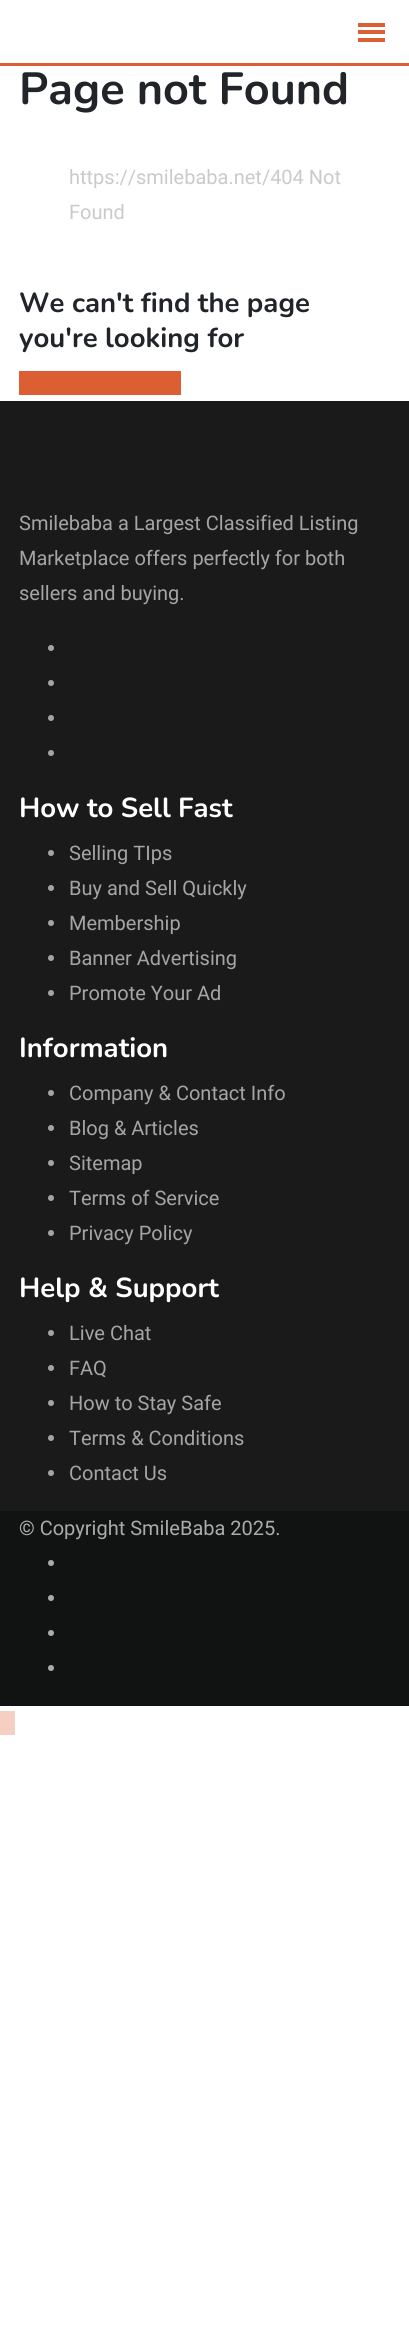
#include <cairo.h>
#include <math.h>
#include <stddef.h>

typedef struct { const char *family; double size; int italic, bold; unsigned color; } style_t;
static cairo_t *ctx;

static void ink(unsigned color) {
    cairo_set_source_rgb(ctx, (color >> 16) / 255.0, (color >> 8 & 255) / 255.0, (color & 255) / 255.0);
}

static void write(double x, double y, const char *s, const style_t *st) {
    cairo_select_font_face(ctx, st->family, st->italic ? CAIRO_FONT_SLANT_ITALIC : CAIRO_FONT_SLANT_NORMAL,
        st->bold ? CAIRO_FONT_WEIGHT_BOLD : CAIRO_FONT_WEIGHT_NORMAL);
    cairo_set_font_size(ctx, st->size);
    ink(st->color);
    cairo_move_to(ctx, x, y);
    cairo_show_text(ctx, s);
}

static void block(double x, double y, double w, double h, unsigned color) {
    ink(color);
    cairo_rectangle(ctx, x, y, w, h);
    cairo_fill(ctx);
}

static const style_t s1 = {"Nunito ExtraLight", 45, 0, 0, 0x212529};
static const style_t s2 = {"Roboto", 20, 0, 0, 0xcacaca};
static const style_t s3 = {"Nunito ExtraLight", 27.5, 0, 0, 0x212529};
static const style_t s4 = {"Roboto", 20, 0, 0, 0xa5a5a5};
static const style_t s5 = {"Nunito ExtraLight", 27.5, 0, 0, 0xffffff};
static const style_t s6 = {"Roboto", 20, 0, 0, 0xababab};

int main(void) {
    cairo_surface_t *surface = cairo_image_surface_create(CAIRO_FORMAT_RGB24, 409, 2329);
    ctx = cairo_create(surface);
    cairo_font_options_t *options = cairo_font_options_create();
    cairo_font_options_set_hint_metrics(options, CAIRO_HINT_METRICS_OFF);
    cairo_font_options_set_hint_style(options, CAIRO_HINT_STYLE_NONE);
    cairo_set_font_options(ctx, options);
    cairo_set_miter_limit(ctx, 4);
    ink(0xffffff);
    cairo_paint(ctx);
    block(0, 63, 409, 3, 0xdb5f32);
    block(358, 23, 27, 4, 0xdb5f32);
    block(358, 30, 27, 4, 0xdb5f32);
    block(358, 38, 27, 4, 0xdb5f32);
    write(19, 104, "Page not Found", &s1);
    write(69, 184, "https://smilebaba.net/404 Not", &s2);
    write(69, 219, "Found", &s2);
    write(19, 312, "We can't find the page", &s3);
    write(19, 347, "you're looking for", &s3);
    block(19, 371, 162, 24, 0xdb5f32);
    block(0, 401, 409, 1110, 0x1a1a1a);
    write(19, 530, "Smilebaba a Largest Classified Listing", &s4);
    write(19, 565, "Marketplace offers perfectly for both", &s4);
    write(19, 600, "sellers and buying.", &s4);
    cairo_new_path(ctx);
    cairo_arc(ctx, 51, 648, 3, 0, 2 * M_PI);
    cairo_fill(ctx);
    cairo_arc(ctx, 51, 683, 3, 0, 2 * M_PI);
    cairo_fill(ctx);
    cairo_arc(ctx, 51, 718, 3, 0, 2 * M_PI);
    cairo_fill(ctx);
    cairo_arc(ctx, 51, 753, 3, 0, 2 * M_PI);
    cairo_fill(ctx);
    write(19, 817, "How to Sell Fast", &s5);
    ink(0xa5a5a5);
    cairo_new_path(ctx);
    cairo_arc(ctx, 51, 853, 3, 0, 2 * M_PI);
    cairo_fill(ctx);
    write(69, 860, "Selling TIps", &s4);
    cairo_new_path(ctx);
    cairo_arc(ctx, 51, 888, 3, 0, 2 * M_PI);
    cairo_fill(ctx);
    write(69, 895, "Buy and Sell Quickly", &s4);
    cairo_new_path(ctx);
    cairo_arc(ctx, 51, 923, 3, 0, 2 * M_PI);
    cairo_fill(ctx);
    write(69, 930, "Membership", &s4);
    cairo_new_path(ctx);
    cairo_arc(ctx, 51, 958, 3, 0, 2 * M_PI);
    cairo_fill(ctx);
    write(69, 965, "Banner Advertising", &s4);
    cairo_new_path(ctx);
    cairo_arc(ctx, 51, 993, 3, 0, 2 * M_PI);
    cairo_fill(ctx);
    write(69, 1000, "Promote Your Ad", &s4);
    write(19, 1057, "Information", &s5);
    ink(0xa5a5a5);
    cairo_new_path(ctx);
    cairo_arc(ctx, 51, 1093, 3, 0, 2 * M_PI);
    cairo_fill(ctx);
    write(69, 1100, "Company & Contact Info", &s4);
    cairo_new_path(ctx);
    cairo_arc(ctx, 51, 1128, 3, 0, 2 * M_PI);
    cairo_fill(ctx);
    write(69, 1135, "Blog & Articles", &s4);
    cairo_new_path(ctx);
    cairo_arc(ctx, 51, 1163, 3, 0, 2 * M_PI);
    cairo_fill(ctx);
    write(69, 1170, "Sitemap", &s4);
    cairo_new_path(ctx);
    cairo_arc(ctx, 51, 1198, 3, 0, 2 * M_PI);
    cairo_fill(ctx);
    write(69, 1205, "Terms of Service", &s4);
    cairo_new_path(ctx);
    cairo_arc(ctx, 51, 1233, 3, 0, 2 * M_PI);
    cairo_fill(ctx);
    write(69, 1240, "Privacy Policy", &s4);
    write(19, 1297, "Help & Support", &s5);
    ink(0xa5a5a5);
    cairo_new_path(ctx);
    cairo_arc(ctx, 51, 1333, 3, 0, 2 * M_PI);
    cairo_fill(ctx);
    write(69, 1340, "Live Chat", &s4);
    cairo_new_path(ctx);
    cairo_arc(ctx, 51, 1368, 3, 0, 2 * M_PI);
    cairo_fill(ctx);
    write(69, 1375, "FAQ", &s4);
    cairo_new_path(ctx);
    cairo_arc(ctx, 51, 1403, 3, 0, 2 * M_PI);
    cairo_fill(ctx);
    write(69, 1410, "How to Stay Safe", &s4);
    cairo_new_path(ctx);
    cairo_arc(ctx, 51, 1438, 3, 0, 2 * M_PI);
    cairo_fill(ctx);
    write(69, 1445, "Terms & Conditions", &s4);
    cairo_new_path(ctx);
    cairo_arc(ctx, 51, 1473, 3, 0, 2 * M_PI);
    cairo_fill(ctx);
    write(69, 1480, "Contact Us", &s4);
    block(0, 1511, 409, 195, 0x111212);
    write(19, 1535, "© Copyright SmileBaba 2025.", &s6);
    cairo_new_path(ctx);
    cairo_arc(ctx, 51, 1563, 3, 0, 2 * M_PI);
    cairo_fill(ctx);
    cairo_arc(ctx, 51, 1598, 3, 0, 2 * M_PI);
    cairo_fill(ctx);
    cairo_arc(ctx, 51, 1633, 3, 0, 2 * M_PI);
    cairo_fill(ctx);
    cairo_arc(ctx, 51, 1668, 3, 0, 2 * M_PI);
    cairo_fill(ctx);
    block(0, 1711, 15, 24, 0xf4cfc2);
    cairo_surface_write_to_png(surface, "screenshot.png");
    cairo_font_options_destroy(options);
    cairo_destroy(ctx);
    cairo_surface_destroy(surface);
    return 0;
}
